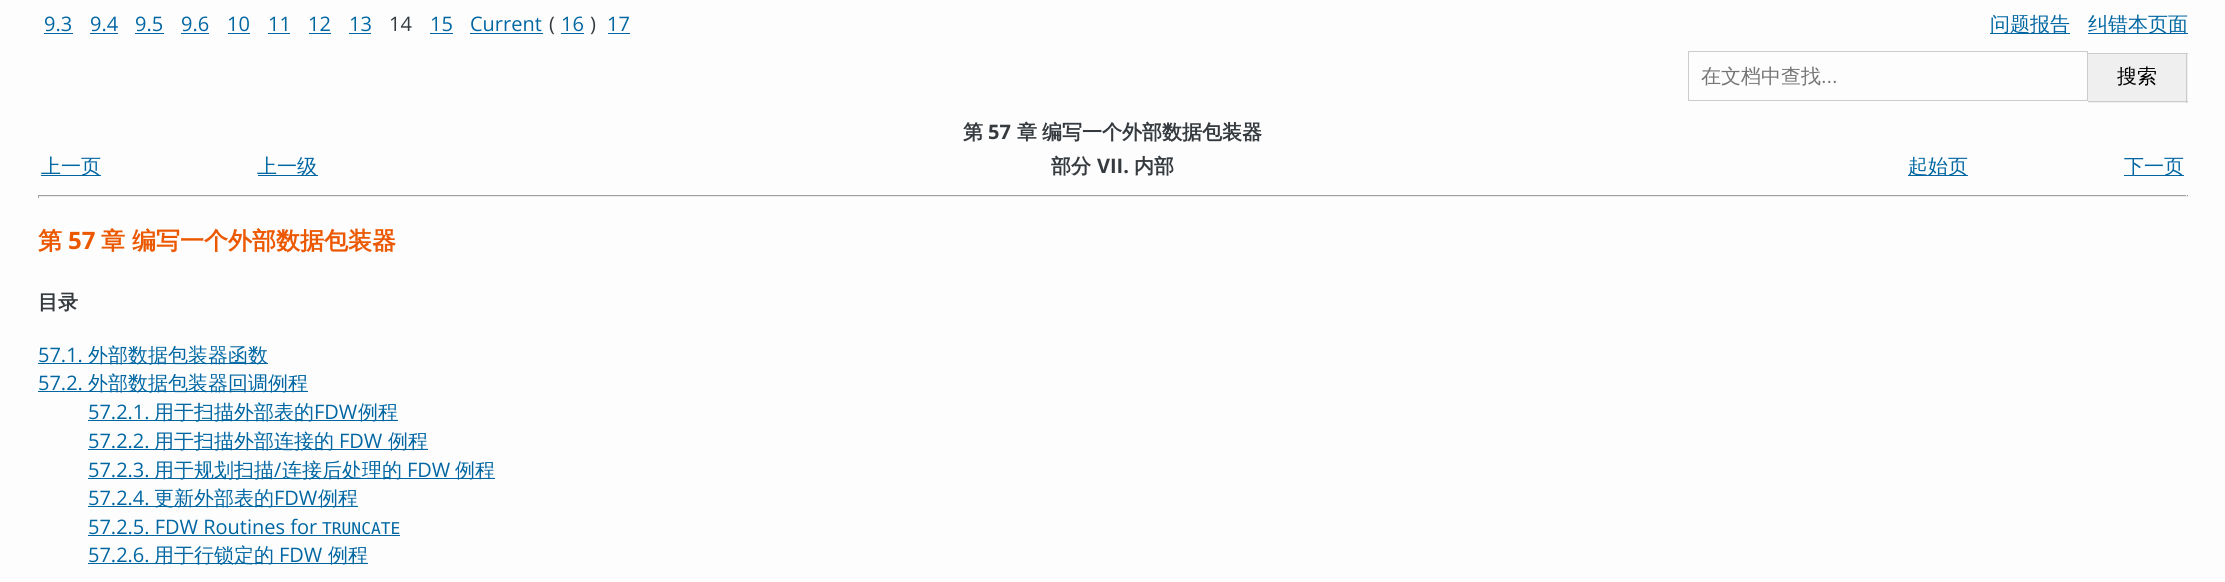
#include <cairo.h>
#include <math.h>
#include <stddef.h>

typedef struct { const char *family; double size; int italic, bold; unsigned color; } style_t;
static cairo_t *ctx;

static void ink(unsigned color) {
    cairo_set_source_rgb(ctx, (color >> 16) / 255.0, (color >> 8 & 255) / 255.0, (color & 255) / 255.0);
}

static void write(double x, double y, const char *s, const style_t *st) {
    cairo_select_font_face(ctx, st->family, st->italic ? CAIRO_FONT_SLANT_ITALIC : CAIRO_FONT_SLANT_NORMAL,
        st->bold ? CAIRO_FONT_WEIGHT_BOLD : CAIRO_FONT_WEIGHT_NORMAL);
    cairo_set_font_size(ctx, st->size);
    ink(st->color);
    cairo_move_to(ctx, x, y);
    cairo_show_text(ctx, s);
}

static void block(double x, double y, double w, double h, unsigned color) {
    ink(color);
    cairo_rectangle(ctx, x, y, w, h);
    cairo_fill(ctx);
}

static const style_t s1 = {"Open Sans", 20, 0, 0, 0x0066a2};
static const style_t s2 = {"Open Sans", 20, 0, 0, 0x353a3f};
static const style_t s3 = {"WenQuanYi Zen Hei Medium", 20, 0, 0, 0x0066a2};
static const style_t s4 = {"WenQuanYi Zen Hei Medium", 20, 0, 0, 0x757575};
static const style_t s5 = {"Liberation Sans", 20, 0, 0, 0x757575};
static const style_t s6 = {"WenQuanYi Zen Hei Medium", 20, 0, 0, 0x000000};
static const style_t s7 = {"WenQuanYi Zen Hei", 20, 0, 1, 0x353a3f};
static const style_t s8 = {"Open Sans", 20, 0, 1, 0x353a3f};
static const style_t s9 = {"WenQuanYi Zen Hei", 24, 0, 1, 0xec5800};
static const style_t s10 = {"Open Sans", 24, 0, 1, 0xec5800};
static const style_t s11 = {"DejaVu Sans Mono", 16.25, 0, 0, 0x0066a2};

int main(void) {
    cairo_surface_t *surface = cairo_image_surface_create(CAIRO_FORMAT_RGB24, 2225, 582);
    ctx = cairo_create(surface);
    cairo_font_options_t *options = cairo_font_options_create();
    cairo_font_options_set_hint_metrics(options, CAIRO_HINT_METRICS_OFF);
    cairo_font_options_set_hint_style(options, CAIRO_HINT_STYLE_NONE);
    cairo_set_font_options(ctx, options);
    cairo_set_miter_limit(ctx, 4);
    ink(0xfdfdfd);
    cairo_paint(ctx);
    write(44, 31, "9.3", &s1);
    block(44, 33, 29, 1, 0x0066a2);
    write(90, 31, "9.4", &s1);
    block(90, 33, 28, 1, 0x0066a2);
    write(135, 31, "9.5", &s1);
    block(135, 33, 29, 1, 0x0066a2);
    write(181, 31, "9.6", &s1);
    block(181, 33, 28, 1, 0x0066a2);
    write(227, 31, "10", &s1);
    block(228, 33, 22, 1, 0x0066a2);
    write(268, 31, "11", &s1);
    block(268, 33, 22, 1, 0x0066a2);
    write(308, 31, "12", &s1);
    block(309, 33, 22, 1, 0x0066a2);
    write(349, 31, "13", &s1);
    block(349, 33, 22, 1, 0x0066a2);
    write(389, 31, "14", &s2);
    write(430, 31, "15", &s1);
    block(430, 33, 23, 1, 0x0066a2);
    write(470, 31, "Current", &s1);
    block(470, 33, 73, 1, 0x0066a2);
    write(549, 31, "(", &s2);
    write(561, 31, "16", &s1);
    block(561, 33, 23, 1, 0x0066a2);
    write(590, 31, ")", &s2);
    write(607, 31, "17", &s1);
    block(608, 33, 22, 1, 0x0066a2);
    block(1990, 33, 80, 1, 0x0066a2);
    write(1990, 31, "问题报告", &s3);
    block(2088, 33, 100, 1, 0x0066a2);
    write(2088, 31, "纠错本页面", &s3);
    cairo_rectangle(ctx, 1688.5, 51.5, 399, 49);
    ink(0xcccccc);
    cairo_set_line_width(ctx, 1);
    cairo_stroke(ctx);
    write(1701, 83, "在文档中查找", &s4);
    write(1821, 83, "...", &s5);
    block(2088, 54, 100, 49, 0xefefef);
    block(2088, 53, 100, 1, 0xcccccc);
    block(2186, 53, 1, 50, 0xcccccc);
    block(2088, 101, 100, 1, 0xcccccc);
    write(2117, 83, "搜索", &s6);
    write(963, 139, "第", &s7);
    write(988, 139, "57", &s8);
    write(1017, 139, "章", &s7);
    write(1042, 139, "编写一个外部数据包装器", &s7);
    block(41, 175, 60, 1, 0x0066a2);
    write(41, 173, "上一页", &s3);
    block(258, 175, 60, 1, 0x0066a2);
    write(257, 173, "上一级", &s3);
    write(1051, 173, "部分", &s7);
    write(1097, 173, "VII.", &s8);
    write(1134, 173, "内部", &s7);
    block(1908, 175, 60, 1, 0x0066a2);
    write(1908, 173, "起始页", &s3);
    block(2124, 175, 60, 1, 0x0066a2);
    write(2124, 173, "下一页", &s3);
    block(38, 195, 2150, 1, 0x9f9f9f);
    block(2186, 195, 1, 3, 0xeeeeee);
    block(38, 196, 2150, 1, 0xeeeeee);
    block(38, 195, 1, 3, 0x9f9f9f);
    write(38, 249, "第", &s9);
    write(68, 249, "57", &s10);
    write(101, 249, "章", &s9);
    write(132, 249, "编写一个外部数据包装器", &s9);
    write(38, 309, "目录", &s7);
    write(38, 362, "57.1.", &s1);
    block(38, 363, 230, 1, 0x0066a2);
    write(88, 362, "外部数据包装器函数", &s3);
    write(38, 390, "57.2.", &s1);
    block(38, 391, 270, 1, 0x0066a2);
    write(88, 390, "外部数据包装器回调例程", &s3);
    write(88, 419, "57.2.1.", &s1);
    block(88, 420, 310, 1, 0x0066a2);
    write(154, 419, "用于扫描外部表的", &s3);
    write(314, 419, "FDW", &s1);
    write(358, 419, "例程", &s3);
    write(88, 448, "57.2.2.", &s1);
    block(88, 449, 340, 1, 0x0066a2);
    write(154, 448, "用于扫描外部连接的", &s3);
    write(339, 448, "FDW", &s1);
    write(388, 448, "例程", &s3);
    write(88, 477, "57.2.3.", &s1);
    block(88, 478, 407, 1, 0x0066a2);
    write(154, 477, "用于规划扫描", &s3);
    write(274, 477, "/", &s1);
    write(282, 477, "连接后处理的", &s3);
    write(407, 477, "FDW", &s1);
    write(455, 477, "例程", &s3);
    write(88, 505, "57.2.4.", &s1);
    block(88, 506, 270, 1, 0x0066a2);
    write(154, 505, "更新外部表的", &s3);
    write(274, 505, "FDW", &s1);
    write(318, 505, "例程", &s3);
    write(88, 534, "57.2.5. FDW Routines for", &s1);
    write(322, 534, "TRUNCATE", &s11);
    block(88, 535, 312, 1, 0x0066a2);
    write(88, 562, "57.2.6.", &s1);
    block(88, 563, 280, 1, 0x0066a2);
    write(154, 562, "用于行锁定的", &s3);
    write(279, 562, "FDW", &s1);
    write(328, 562, "例程", &s3);
    cairo_surface_write_to_png(surface, "screenshot.png");
    cairo_font_options_destroy(options);
    cairo_destroy(ctx);
    cairo_surface_destroy(surface);
    return 0;
}
